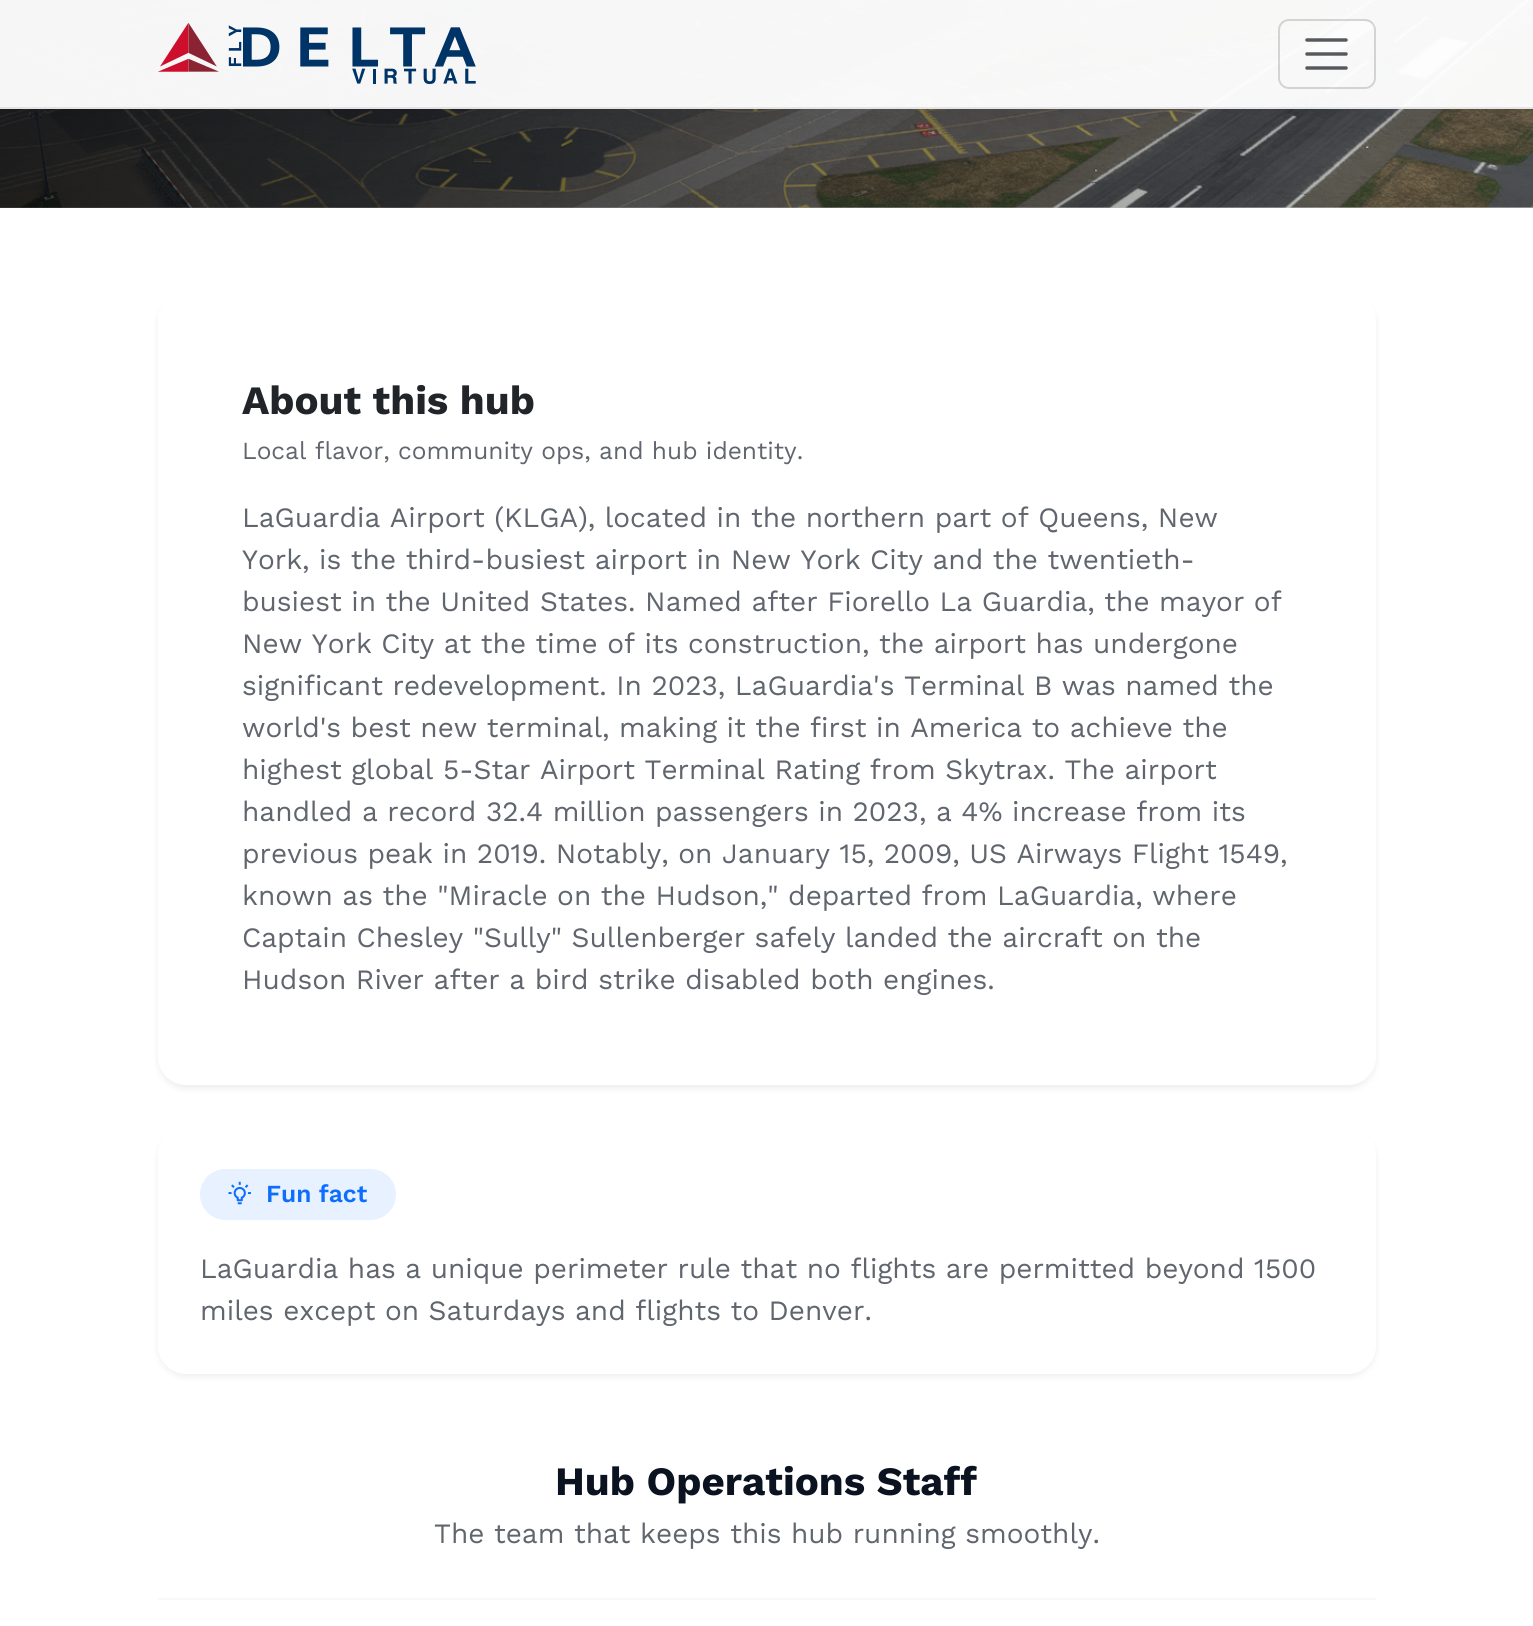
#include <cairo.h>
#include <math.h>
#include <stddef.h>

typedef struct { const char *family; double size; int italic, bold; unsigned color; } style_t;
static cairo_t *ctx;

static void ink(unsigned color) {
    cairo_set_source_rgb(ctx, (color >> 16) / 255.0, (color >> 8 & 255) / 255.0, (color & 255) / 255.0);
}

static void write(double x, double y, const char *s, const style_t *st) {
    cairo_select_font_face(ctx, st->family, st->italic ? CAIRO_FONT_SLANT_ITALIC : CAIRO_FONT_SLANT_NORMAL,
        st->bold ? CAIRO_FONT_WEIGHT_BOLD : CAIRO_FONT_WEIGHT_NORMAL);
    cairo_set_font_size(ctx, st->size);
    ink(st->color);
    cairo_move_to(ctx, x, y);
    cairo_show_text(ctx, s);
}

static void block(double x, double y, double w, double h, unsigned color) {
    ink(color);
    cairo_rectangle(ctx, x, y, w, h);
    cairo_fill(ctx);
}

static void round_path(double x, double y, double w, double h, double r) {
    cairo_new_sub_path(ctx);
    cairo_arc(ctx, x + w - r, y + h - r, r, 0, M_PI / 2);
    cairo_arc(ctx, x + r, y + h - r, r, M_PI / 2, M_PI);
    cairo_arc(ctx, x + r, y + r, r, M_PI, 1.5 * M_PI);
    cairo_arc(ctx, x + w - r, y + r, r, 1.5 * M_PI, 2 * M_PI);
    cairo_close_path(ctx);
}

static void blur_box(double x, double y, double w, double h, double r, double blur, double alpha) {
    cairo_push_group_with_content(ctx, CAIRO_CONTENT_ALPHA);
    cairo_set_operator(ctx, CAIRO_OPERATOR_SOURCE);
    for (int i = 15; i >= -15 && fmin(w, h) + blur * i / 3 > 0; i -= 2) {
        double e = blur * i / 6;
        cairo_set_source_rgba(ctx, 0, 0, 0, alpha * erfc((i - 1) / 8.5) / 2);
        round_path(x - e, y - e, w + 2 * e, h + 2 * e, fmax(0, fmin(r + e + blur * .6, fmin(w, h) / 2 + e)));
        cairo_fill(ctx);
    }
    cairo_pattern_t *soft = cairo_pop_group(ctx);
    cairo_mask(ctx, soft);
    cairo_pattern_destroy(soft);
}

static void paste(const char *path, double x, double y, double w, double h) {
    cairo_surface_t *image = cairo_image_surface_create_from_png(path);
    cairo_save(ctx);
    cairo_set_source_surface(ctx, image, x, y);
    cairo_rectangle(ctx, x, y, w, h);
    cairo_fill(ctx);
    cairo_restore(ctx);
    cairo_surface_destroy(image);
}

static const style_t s1 = {"Work Sans", 40.25, 0, 1, 0x212529};
static const style_t s2 = {"Work Sans", 24.5, 0, 0, 0x60656e};
static const style_t s3 = {"Work Sans", 28, 0, 0, 0x60656e};
static const style_t s4 = {"Work Sans SemiBold", 24.5, 0, 0, 0x0d6efd};
static const style_t s5 = {"Work Sans", 40.25, 0, 1, 0x0b1220};

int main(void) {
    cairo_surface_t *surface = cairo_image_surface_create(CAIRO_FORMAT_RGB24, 1533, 1626);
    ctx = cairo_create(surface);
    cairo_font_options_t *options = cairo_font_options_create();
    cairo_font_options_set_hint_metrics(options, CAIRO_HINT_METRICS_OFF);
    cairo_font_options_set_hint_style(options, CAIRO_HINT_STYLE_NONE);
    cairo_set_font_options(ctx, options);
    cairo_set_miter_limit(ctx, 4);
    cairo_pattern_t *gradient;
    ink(0xffffff);
    cairo_paint(ctx);
    paste("pic2.png", 0, 0, 1533, 208);
    gradient = cairo_pattern_create_linear(0, -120, 1533, -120);
    cairo_pattern_add_color_stop_rgba(gradient, 0, 0, 0, 0, 0.72);
    cairo_pattern_add_color_stop_rgba(gradient, 0.55, 0, 0, 0, 0.35);
    cairo_pattern_add_color_stop_rgba(gradient, 1, 0, 0, 0, 0.12);
    cairo_set_source(ctx, gradient);
    cairo_pattern_destroy(gradient);
    cairo_rectangle(ctx, 0, 0, 1533, 208);
    cairo_fill(ctx);
    cairo_save(ctx);
    cairo_set_fill_rule(ctx, CAIRO_FILL_RULE_EVEN_ODD);
    cairo_new_path(ctx);
    cairo_move_to(ctx, 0, 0);
    cairo_line_to(ctx, 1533, 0);
    cairo_line_to(ctx, 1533, 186);
    cairo_line_to(ctx, 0, 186);
    cairo_close_path(ctx);
    cairo_move_to(ctx, 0, 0);
    cairo_line_to(ctx, 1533, 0);
    cairo_line_to(ctx, 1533, 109);
    cairo_line_to(ctx, 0, 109);
    cairo_close_path(ctx);
    cairo_clip(ctx);
    ink(0x020617);
    blur_box(0, 18, 1533, 108, 0, 19.5, 0.08);
    cairo_restore(ctx);
    cairo_set_source_rgba(ctx, 1, 1, 1, 0.96);
    cairo_rectangle(ctx, 0, 0, 1533, 109);
    cairo_fill(ctx);
    cairo_set_source_rgba(ctx, 0, 0, 0, 0.08);
    cairo_rectangle(ctx, 0, 107, 1533, 2);
    cairo_fill(ctx);
    paste("pic1.png", 158, 23, 318, 61);
    round_path(1279, 20, 96, 68, 10);
    cairo_set_source_rgba(ctx, 0, 0, 0, 0.15);
    cairo_stroke(ctx);
    cairo_new_path(ctx);
    cairo_move_to(ctx, 1307, 40);
    cairo_line_to(ctx, 1346, 40);
    cairo_move_to(ctx, 1307, 54);
    cairo_line_to(ctx, 1346, 54);
    cairo_move_to(ctx, 1307, 68);
    cairo_line_to(ctx, 1346, 68);
    cairo_set_source_rgba(ctx, 0.129, 0.145, 0.161, 0.75);
    cairo_set_line_width(ctx, 3.5);
    cairo_set_line_cap(ctx, CAIRO_LINE_CAP_ROUND);
    cairo_stroke(ctx);
    ink(0x000000);
    blur_box(158, 296, 1218, 793, 28, 3.5, 0.07);
    ink(0xffffff);
    round_path(158, 292, 1218, 793, 28);
    cairo_fill(ctx);
    write(242, 414, "About this hub", &s1);
    write(242, 459, "Local flavor, community ops, and hub identity.", &s2);
    write(242, 527, "LaGuardia Airport (KLGA), located in the northern part of Queens, New", &s3);
    write(242, 569, "York, is the third-busiest airport in New York City and the twentieth-", &s3);
    write(242, 611, "busiest in the United States. Named after Fiorello La Guardia, the mayor of", &s3);
    write(242, 653, "New York City at the time of its construction, the airport has undergone", &s3);
    write(242, 695, "significant redevelopment. In 2023, LaGuardia's Terminal B was named the", &s3);
    write(242, 737, "world's best new terminal, making it the first in America to achieve the", &s3);
    write(242, 779, "highest global 5-Star Airport Terminal Rating from Skytrax. The airport", &s3);
    write(242, 821, "handled a record 32.4 million passengers in 2023, a 4% increase from its", &s3);
    write(242, 863, "previous peak in 2019. Notably, on January 15, 2009, US Airways Flight 1549,", &s3);
    write(242, 905, "known as the \"Miracle on the Hudson,\" departed from LaGuardia, where", &s3);
    write(242, 947, "Captain Chesley \"Sully\" Sullenberger safely landed the aircraft on the", &s3);
    write(242, 989, "Hudson River after a bird strike disabled both engines.", &s3);
    ink(0x000000);
    blur_box(158, 1131, 1218, 246, 28, 3.5, 0.07);
    ink(0xffffff);
    round_path(158, 1127, 1218, 247, 28);
    cairo_fill(ctx);
    ink(0xe7f1ff);
    round_path(200, 1169, 196, 51, 25.5);
    cairo_fill(ctx);
    paste("pic3.png", 228, 1181, 23, 24);
    write(266, 1202, "Fun fact", &s4);
    write(200, 1278, "LaGuardia has a unique perimeter rule that no flights are permitted beyond 1500", &s3);
    write(200, 1320, "miles except on Saturdays and flights to Denver.", &s3);
    write(555, 1495, "Hub Operations Staff", &s5);
    write(434, 1543, "The team that keeps this hub running smoothly.", &s3);
    block(158, 1598, 1218, 2, 0xf9f9fa);
    cairo_surface_write_to_png(surface, "screenshot.png");
    cairo_font_options_destroy(options);
    cairo_destroy(ctx);
    cairo_surface_destroy(surface);
    return 0;
}
